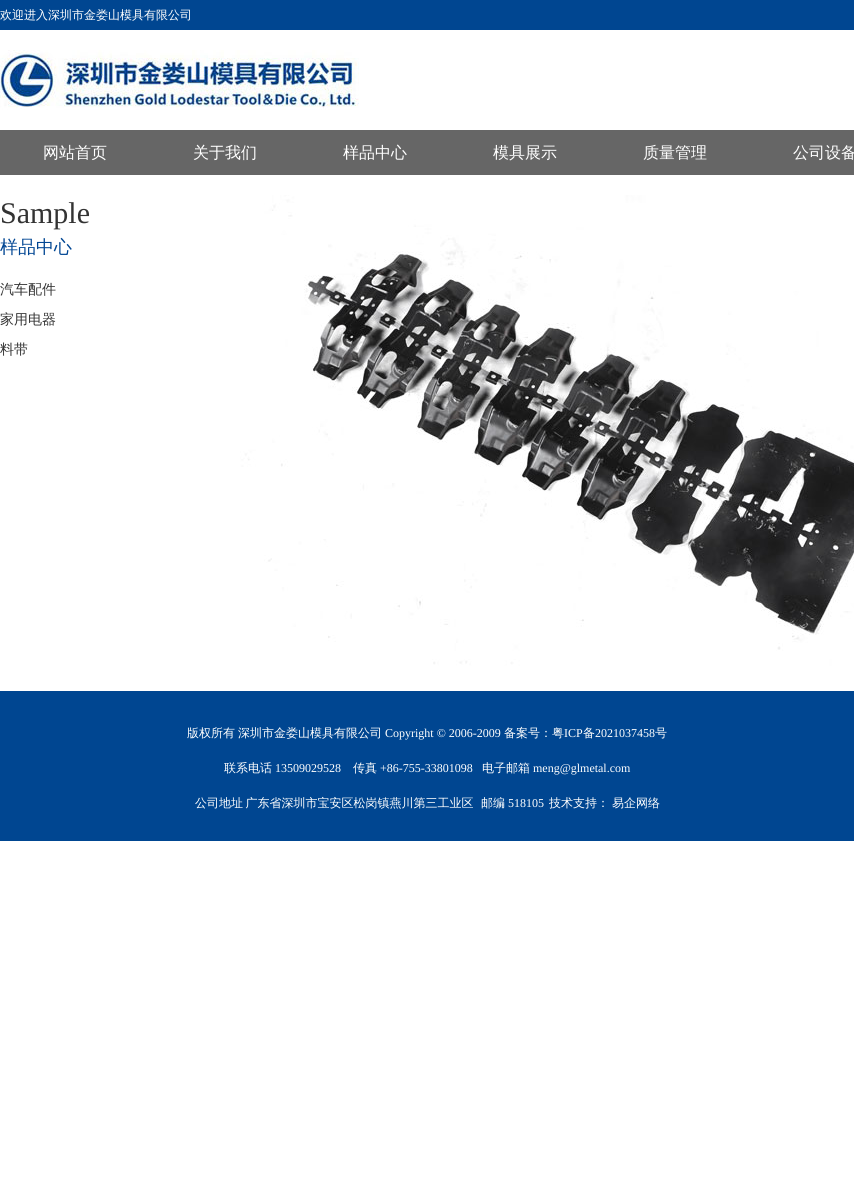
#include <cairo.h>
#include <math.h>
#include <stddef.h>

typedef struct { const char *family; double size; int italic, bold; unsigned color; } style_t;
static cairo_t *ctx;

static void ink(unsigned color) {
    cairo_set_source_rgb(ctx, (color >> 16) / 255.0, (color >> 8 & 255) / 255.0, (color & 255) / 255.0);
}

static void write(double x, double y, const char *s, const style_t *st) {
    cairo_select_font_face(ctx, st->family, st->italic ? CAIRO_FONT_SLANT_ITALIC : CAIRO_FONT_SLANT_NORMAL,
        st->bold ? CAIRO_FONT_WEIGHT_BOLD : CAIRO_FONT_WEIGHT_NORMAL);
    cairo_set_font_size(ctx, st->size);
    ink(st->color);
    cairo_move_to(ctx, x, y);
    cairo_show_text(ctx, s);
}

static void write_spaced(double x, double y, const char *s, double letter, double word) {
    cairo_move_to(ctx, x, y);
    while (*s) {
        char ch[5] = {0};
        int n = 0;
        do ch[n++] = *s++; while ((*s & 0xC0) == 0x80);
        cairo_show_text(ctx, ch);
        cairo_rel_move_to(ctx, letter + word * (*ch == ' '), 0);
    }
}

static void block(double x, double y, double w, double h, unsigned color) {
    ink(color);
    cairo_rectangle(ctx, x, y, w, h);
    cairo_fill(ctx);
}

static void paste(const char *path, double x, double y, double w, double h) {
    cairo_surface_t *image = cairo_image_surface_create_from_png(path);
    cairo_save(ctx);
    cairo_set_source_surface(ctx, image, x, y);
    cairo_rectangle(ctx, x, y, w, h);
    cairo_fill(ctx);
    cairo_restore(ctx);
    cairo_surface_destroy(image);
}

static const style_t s1 = {"WenQuanYi Zen Hei Medium", 12, 0, 0, 0xffffff};
static const style_t s2 = {"WenQuanYi Zen Hei Medium", 16, 0, 0, 0xffffff};
static const style_t s3 = {"Liberation Serif", 30, 0, 0, 0x333333};
static const style_t s4 = {"WenQuanYi Zen Hei Medium", 18, 0, 0, 0x014693};
static const style_t s5 = {"WenQuanYi Zen Hei Medium", 14, 0, 0, 0x333333};
static const style_t s6 = {"Liberation Serif", 12, 0, 0, 0xffffff};

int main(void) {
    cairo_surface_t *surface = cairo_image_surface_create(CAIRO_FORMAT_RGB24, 854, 1204);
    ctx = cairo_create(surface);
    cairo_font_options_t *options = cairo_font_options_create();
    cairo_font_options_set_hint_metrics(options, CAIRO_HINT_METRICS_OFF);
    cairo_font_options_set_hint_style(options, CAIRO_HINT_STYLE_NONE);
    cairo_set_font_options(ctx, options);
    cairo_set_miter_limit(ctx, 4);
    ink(0xffffff);
    cairo_paint(ctx);
    block(0, 0, 854, 30, 0x004691);
    write(0, 19, "欢迎进入深圳市金娄山模具有限公司", &s1);
    paste("pic1.png", 0, 50, 359, 60);
    block(0, 130, 854, 45, 0x666666);
    write(43, 158, "网站首页", &s2);
    write(193, 158, "关于我们", &s2);
    write(343, 158, "样品中心", &s2);
    write(493, 158, "模具展示", &s2);
    write(643, 158, "质量管理", &s2);
    write(793, 158, "公司设备", &s2);
    write(0, 223, "Sample", &s3);
    write(0, 253, "样品中心", &s4);
    write(0, 294, "汽车配件", &s5);
    write(0, 324, "家用电器", &s5);
    write(0, 354, "料带", &s5);
    paste("pic2.png", 240, 195, 614, 471);
    block(0, 691, 854, 150, 0x004691);
    write(187, 737, "版权所有", &s1);
    write(238, 737, "深圳市金娄山模具有限公司", &s1);
    write(385, 737, "Copyright © 2006-2009", &s6);
    write(504, 737, "备案号：粤", &s1);
    write(564, 737, "ICP", &s6);
    write(583, 737, "备", &s1);
    write(595, 737, "2021037458", &s6);
    write(655, 737, "号", &s1);
    write(224, 772, "联系电话", &s1);
    write(275, 772, "13509029528", &s6);
    write(353, 772, "传真", &s1);
    write(380, 772, "+86-755-33801098", &s6);
    write(482, 772, "电子邮箱", &s1);
    write(533, 772, "meng@glmetal.com", &s6);
    cairo_select_font_face(ctx, "WenQuanYi Zen Hei Medium", CAIRO_FONT_SLANT_NORMAL, CAIRO_FONT_WEIGHT_NORMAL);
    write_spaced(195, 807, "公司地址 广东省深圳市宝安区松岗镇燕川第三工业区", 0, -1);
    write(481, 807, "邮编", &s1);
    write(508, 807, "518105", &s6);
    write(549, 807, "技术支持：", &s1);
    write(612, 807, "易企网络", &s1);
    cairo_surface_write_to_png(surface, "screenshot.png");
    cairo_font_options_destroy(options);
    cairo_destroy(ctx);
    cairo_surface_destroy(surface);
    return 0;
}
